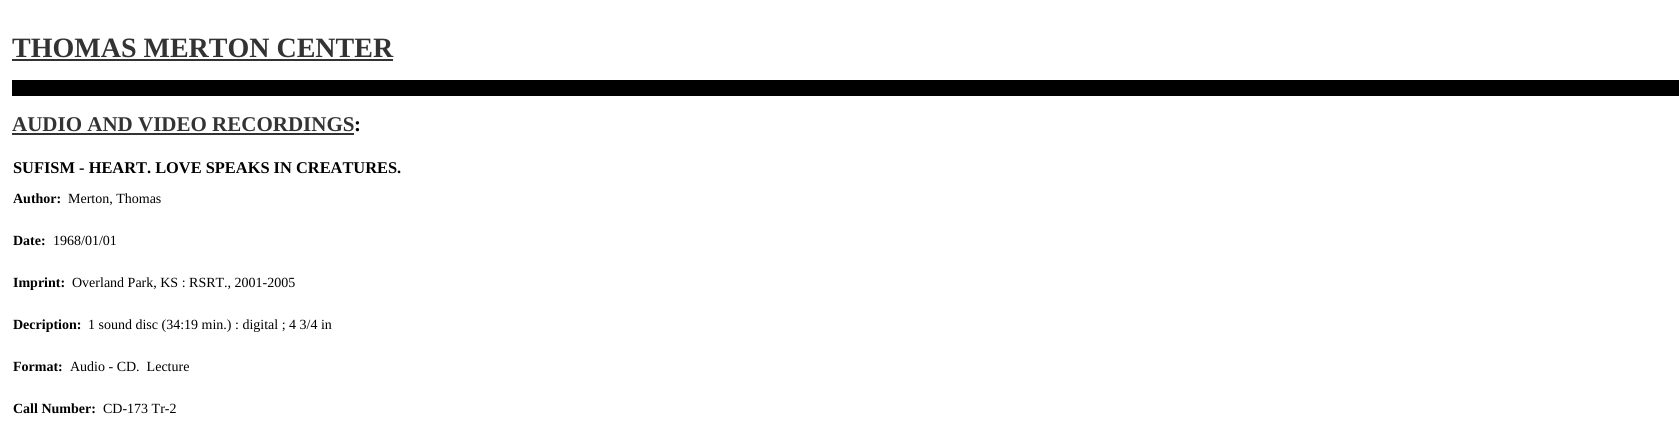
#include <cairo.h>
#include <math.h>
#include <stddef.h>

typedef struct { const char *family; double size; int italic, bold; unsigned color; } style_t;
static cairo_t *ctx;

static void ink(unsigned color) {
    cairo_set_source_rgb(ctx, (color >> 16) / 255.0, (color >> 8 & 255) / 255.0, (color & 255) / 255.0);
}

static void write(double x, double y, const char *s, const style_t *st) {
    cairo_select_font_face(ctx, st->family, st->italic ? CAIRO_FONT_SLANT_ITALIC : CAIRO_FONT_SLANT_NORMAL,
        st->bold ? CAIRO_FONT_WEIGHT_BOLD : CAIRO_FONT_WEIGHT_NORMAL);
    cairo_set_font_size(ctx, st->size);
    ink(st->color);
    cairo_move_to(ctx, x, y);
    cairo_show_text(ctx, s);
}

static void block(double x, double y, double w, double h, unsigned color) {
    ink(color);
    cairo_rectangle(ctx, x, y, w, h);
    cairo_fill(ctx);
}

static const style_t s1 = {"Liberation Serif", 28, 0, 1, 0x333333};
static const style_t s2 = {"Liberation Serif", 21, 0, 1, 0x333333};
static const style_t s3 = {"Liberation Serif", 21, 0, 1, 0x000000};
static const style_t s4 = {"Liberation Serif", 16.4, 0, 1, 0x000000};
static const style_t s5 = {"Liberation Serif", 14, 0, 1, 0x000000};
static const style_t s6 = {"Liberation Serif", 14, 0, 0, 0x000000};

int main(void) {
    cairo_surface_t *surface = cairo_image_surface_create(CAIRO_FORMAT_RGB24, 1679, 423);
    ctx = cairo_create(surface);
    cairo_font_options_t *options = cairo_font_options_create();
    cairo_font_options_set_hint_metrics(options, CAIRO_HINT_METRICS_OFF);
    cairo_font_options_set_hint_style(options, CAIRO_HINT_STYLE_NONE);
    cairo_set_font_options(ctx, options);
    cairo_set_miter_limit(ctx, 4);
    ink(0xffffff);
    cairo_paint(ctx);
    write(12, 57, "THOMAS MERTON CENTER", &s1);
    block(12, 59, 381, 2, 0x333333);
    block(12, 80, 1667, 16, 0x000000);
    write(12, 131, "AUDIO AND VIDEO RECORDINGS", &s2);
    block(12, 133, 342, 2, 0x333333);
    write(354, 131, ":", &s3);
    write(13, 173, "SUFISM - HEART. LOVE SPEAKS IN CREATURES.", &s4);
    write(13, 203, "Author:", &s5);
    write(68, 203, "Merton, Thomas", &s6);
    write(13, 245, "Date:", &s5);
    write(53, 245, "1968/01/01", &s6);
    write(13, 287, "Imprint:", &s5);
    write(72, 287, "Overland Park, KS : RSRT., 2001-2005", &s6);
    write(13, 329, "Decription:", &s5);
    write(88, 329, "1 sound disc (34:19 min.) : digital ; 4 3/4 in", &s6);
    write(13, 371, "Format:", &s5);
    write(70, 371, "Audio - CD.  Lecture", &s6);
    write(13, 413, "Call Number:", &s5);
    write(103, 413, "CD-173 Tr-2", &s6);
    cairo_surface_write_to_png(surface, "screenshot.png");
    cairo_font_options_destroy(options);
    cairo_destroy(ctx);
    cairo_surface_destroy(surface);
    return 0;
}
